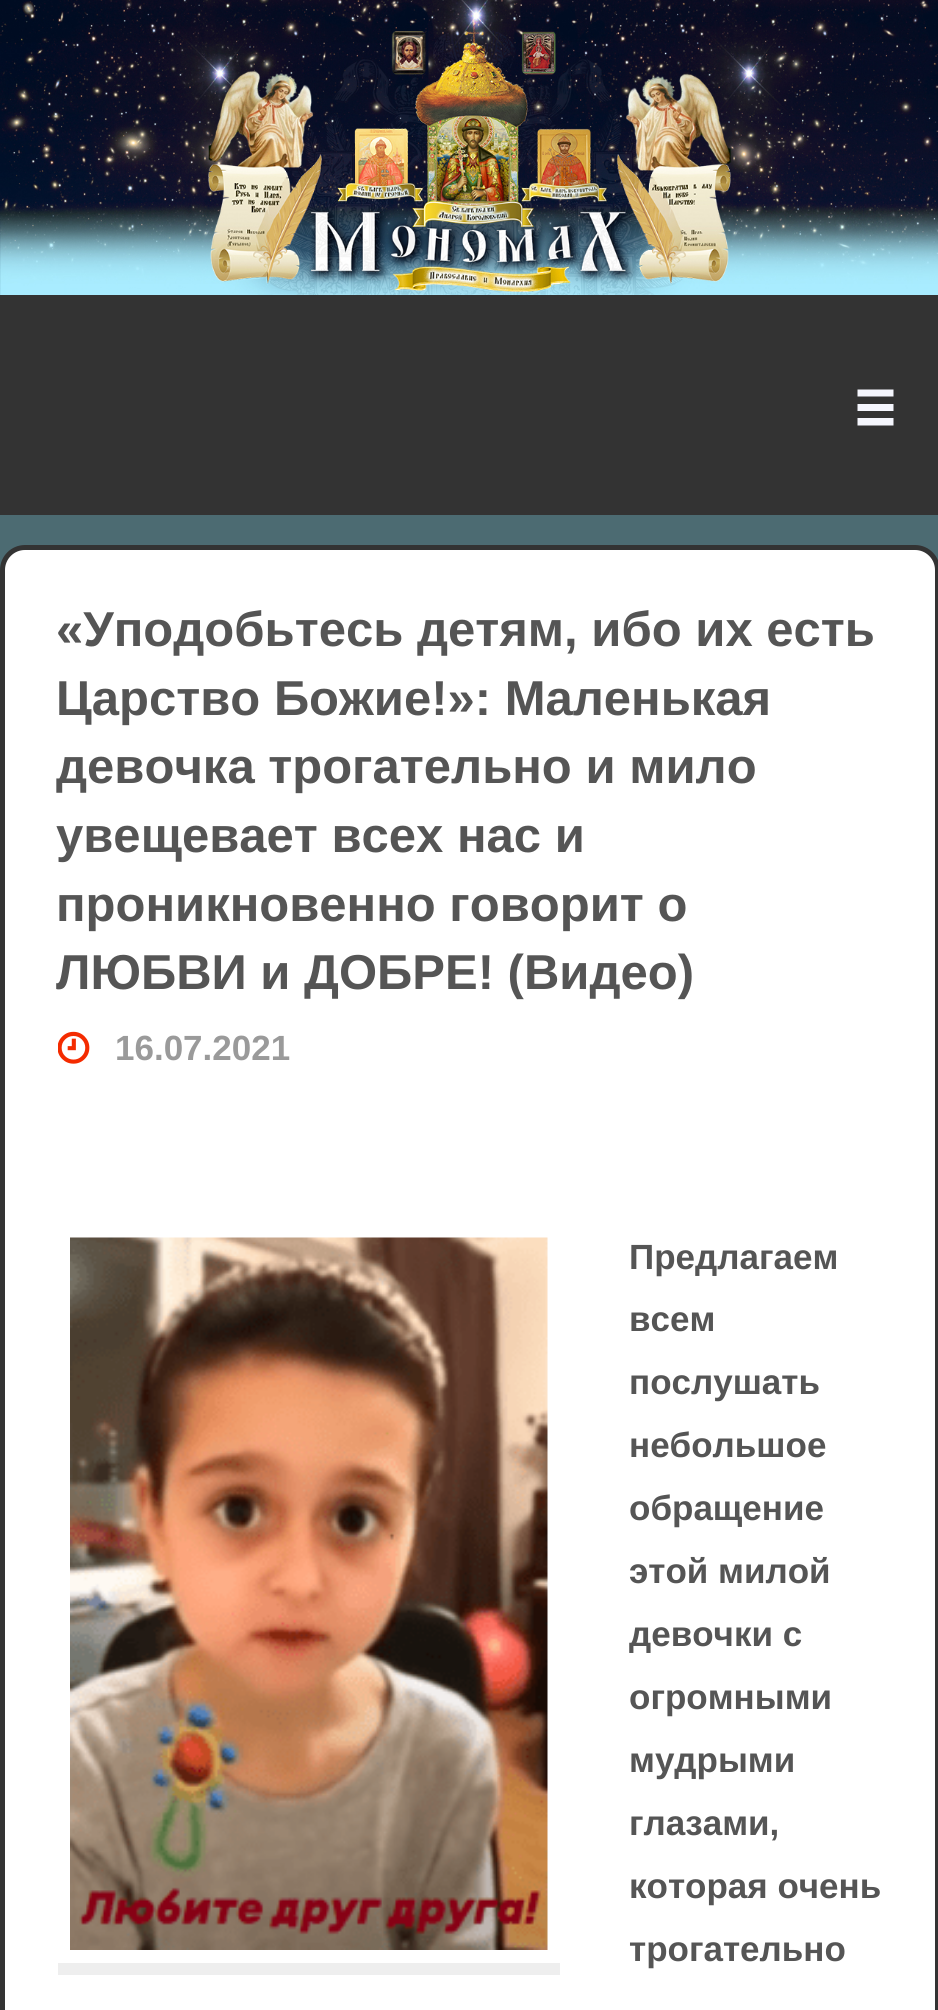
#include <cairo.h>
#include <math.h>
#include <stddef.h>

typedef struct { const char *family; double size; int italic, bold; unsigned color; } style_t;
static cairo_t *ctx;

static void ink(unsigned color) {
    cairo_set_source_rgb(ctx, (color >> 16) / 255.0, (color >> 8 & 255) / 255.0, (color & 255) / 255.0);
}

static void write(double x, double y, const char *s, const style_t *st) {
    cairo_select_font_face(ctx, st->family, st->italic ? CAIRO_FONT_SLANT_ITALIC : CAIRO_FONT_SLANT_NORMAL,
        st->bold ? CAIRO_FONT_WEIGHT_BOLD : CAIRO_FONT_WEIGHT_NORMAL);
    cairo_set_font_size(ctx, st->size);
    ink(st->color);
    cairo_move_to(ctx, x, y);
    cairo_show_text(ctx, s);
}

static void block(double x, double y, double w, double h, unsigned color) {
    ink(color);
    cairo_rectangle(ctx, x, y, w, h);
    cairo_fill(ctx);
}

static void round_path(double x, double y, double w, double h, double r) {
    cairo_new_sub_path(ctx);
    cairo_arc(ctx, x + w - r, y + h - r, r, 0, M_PI / 2);
    cairo_arc(ctx, x + r, y + h - r, r, M_PI / 2, M_PI);
    cairo_arc(ctx, x + r, y + r, r, M_PI, 1.5 * M_PI);
    cairo_arc(ctx, x + w - r, y + r, r, 1.5 * M_PI, 2 * M_PI);
    cairo_close_path(ctx);
}

static void paste(const char *path, double x, double y, double w, double h) {
    cairo_surface_t *image = cairo_image_surface_create_from_png(path);
    cairo_save(ctx);
    cairo_set_source_surface(ctx, image, x, y);
    cairo_rectangle(ctx, x, y, w, h);
    cairo_fill(ctx);
    cairo_restore(ctx);
    cairo_surface_destroy(image);
}

static const style_t s1 = {"Liberation Sans", 49, 0, 1, 0x555555};
static const style_t s2 = {"Liberation Sans", 35, 0, 1, 0x9a9a9a};
static const style_t s3 = {"Liberation Sans", 35, 0, 1, 0x555555};

int main(void) {
    cairo_surface_t *surface = cairo_image_surface_create(CAIRO_FORMAT_RGB24, 938, 2010);
    ctx = cairo_create(surface);
    cairo_font_options_t *options = cairo_font_options_create();
    cairo_font_options_set_hint_metrics(options, CAIRO_HINT_METRICS_OFF);
    cairo_font_options_set_hint_style(options, CAIRO_HINT_STYLE_NONE);
    cairo_set_font_options(ctx, options);
    cairo_set_miter_limit(ctx, 4);
    ink(0x333333);
    cairo_paint(ctx);
    paste("pic1.png", 0, 0, 938, 295);
    ink(0xf5f6fd);
    cairo_new_path(ctx);
    cairo_move_to(ctx, 857.5, 389.5);
    cairo_line_to(ctx, 857.5, 396.5);
    cairo_line_to(ctx, 893.5, 396.5);
    cairo_line_to(ctx, 893.5, 389.5);
    cairo_close_path(ctx);
    cairo_move_to(ctx, 857.5, 404);
    cairo_line_to(ctx, 857.5, 411);
    cairo_line_to(ctx, 893.5, 411);
    cairo_line_to(ctx, 893.5, 404);
    cairo_close_path(ctx);
    cairo_move_to(ctx, 857.5, 418);
    cairo_line_to(ctx, 857.5, 425.5);
    cairo_line_to(ctx, 893.5, 425.5);
    cairo_line_to(ctx, 893.5, 418);
    cairo_close_path(ctx);
    cairo_fill(ctx);
    block(0, 515, 938, 55, 0x4c6b72);
    ink(0xffffff);
    round_path(2.5, 547.5, 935, 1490, 22.5);
    cairo_fill_preserve(ctx);
    ink(0x333333);
    cairo_set_line_width(ctx, 5);
    cairo_stroke(ctx);
    write(56, 646, "«Уподобьтесь детям, ибо их есть", &s1);
    write(56, 715, "Царство Божие!»: Маленькая", &s1);
    write(56, 783, "девочка трогательно и мило", &s1);
    write(56, 852, "увещевает всех нас и", &s1);
    write(56, 921, "проникновенно говорит о", &s1);
    write(56, 989, "ЛЮБВИ и ДОБРЕ! (Видео)", &s1);
    paste("pic2.png", 58, 1031, 32, 33);
    write(115, 1060, "16.07.2021", &s2);
    block(58, 1963, 502, 12, 0xeeeeee);
    paste("pic3.png", 70, 1237, 478, 713);
    write(629, 1269, "Предлагаем", &s3);
    write(629, 1331, "всем", &s3);
    write(629, 1394, "послушать", &s3);
    write(629, 1457, "небольшое", &s3);
    write(629, 1520, "обращение", &s3);
    write(629, 1583, "этой милой", &s3);
    write(629, 1646, "девочки с", &s3);
    write(629, 1709, "огромными", &s3);
    write(629, 1772, "мудрыми", &s3);
    write(629, 1835, "глазами,", &s3);
    write(629, 1898, "которая очень", &s3);
    write(629, 1961, "трогательно", &s3);
    cairo_surface_write_to_png(surface, "screenshot.png");
    cairo_font_options_destroy(options);
    cairo_destroy(ctx);
    cairo_surface_destroy(surface);
    return 0;
}
